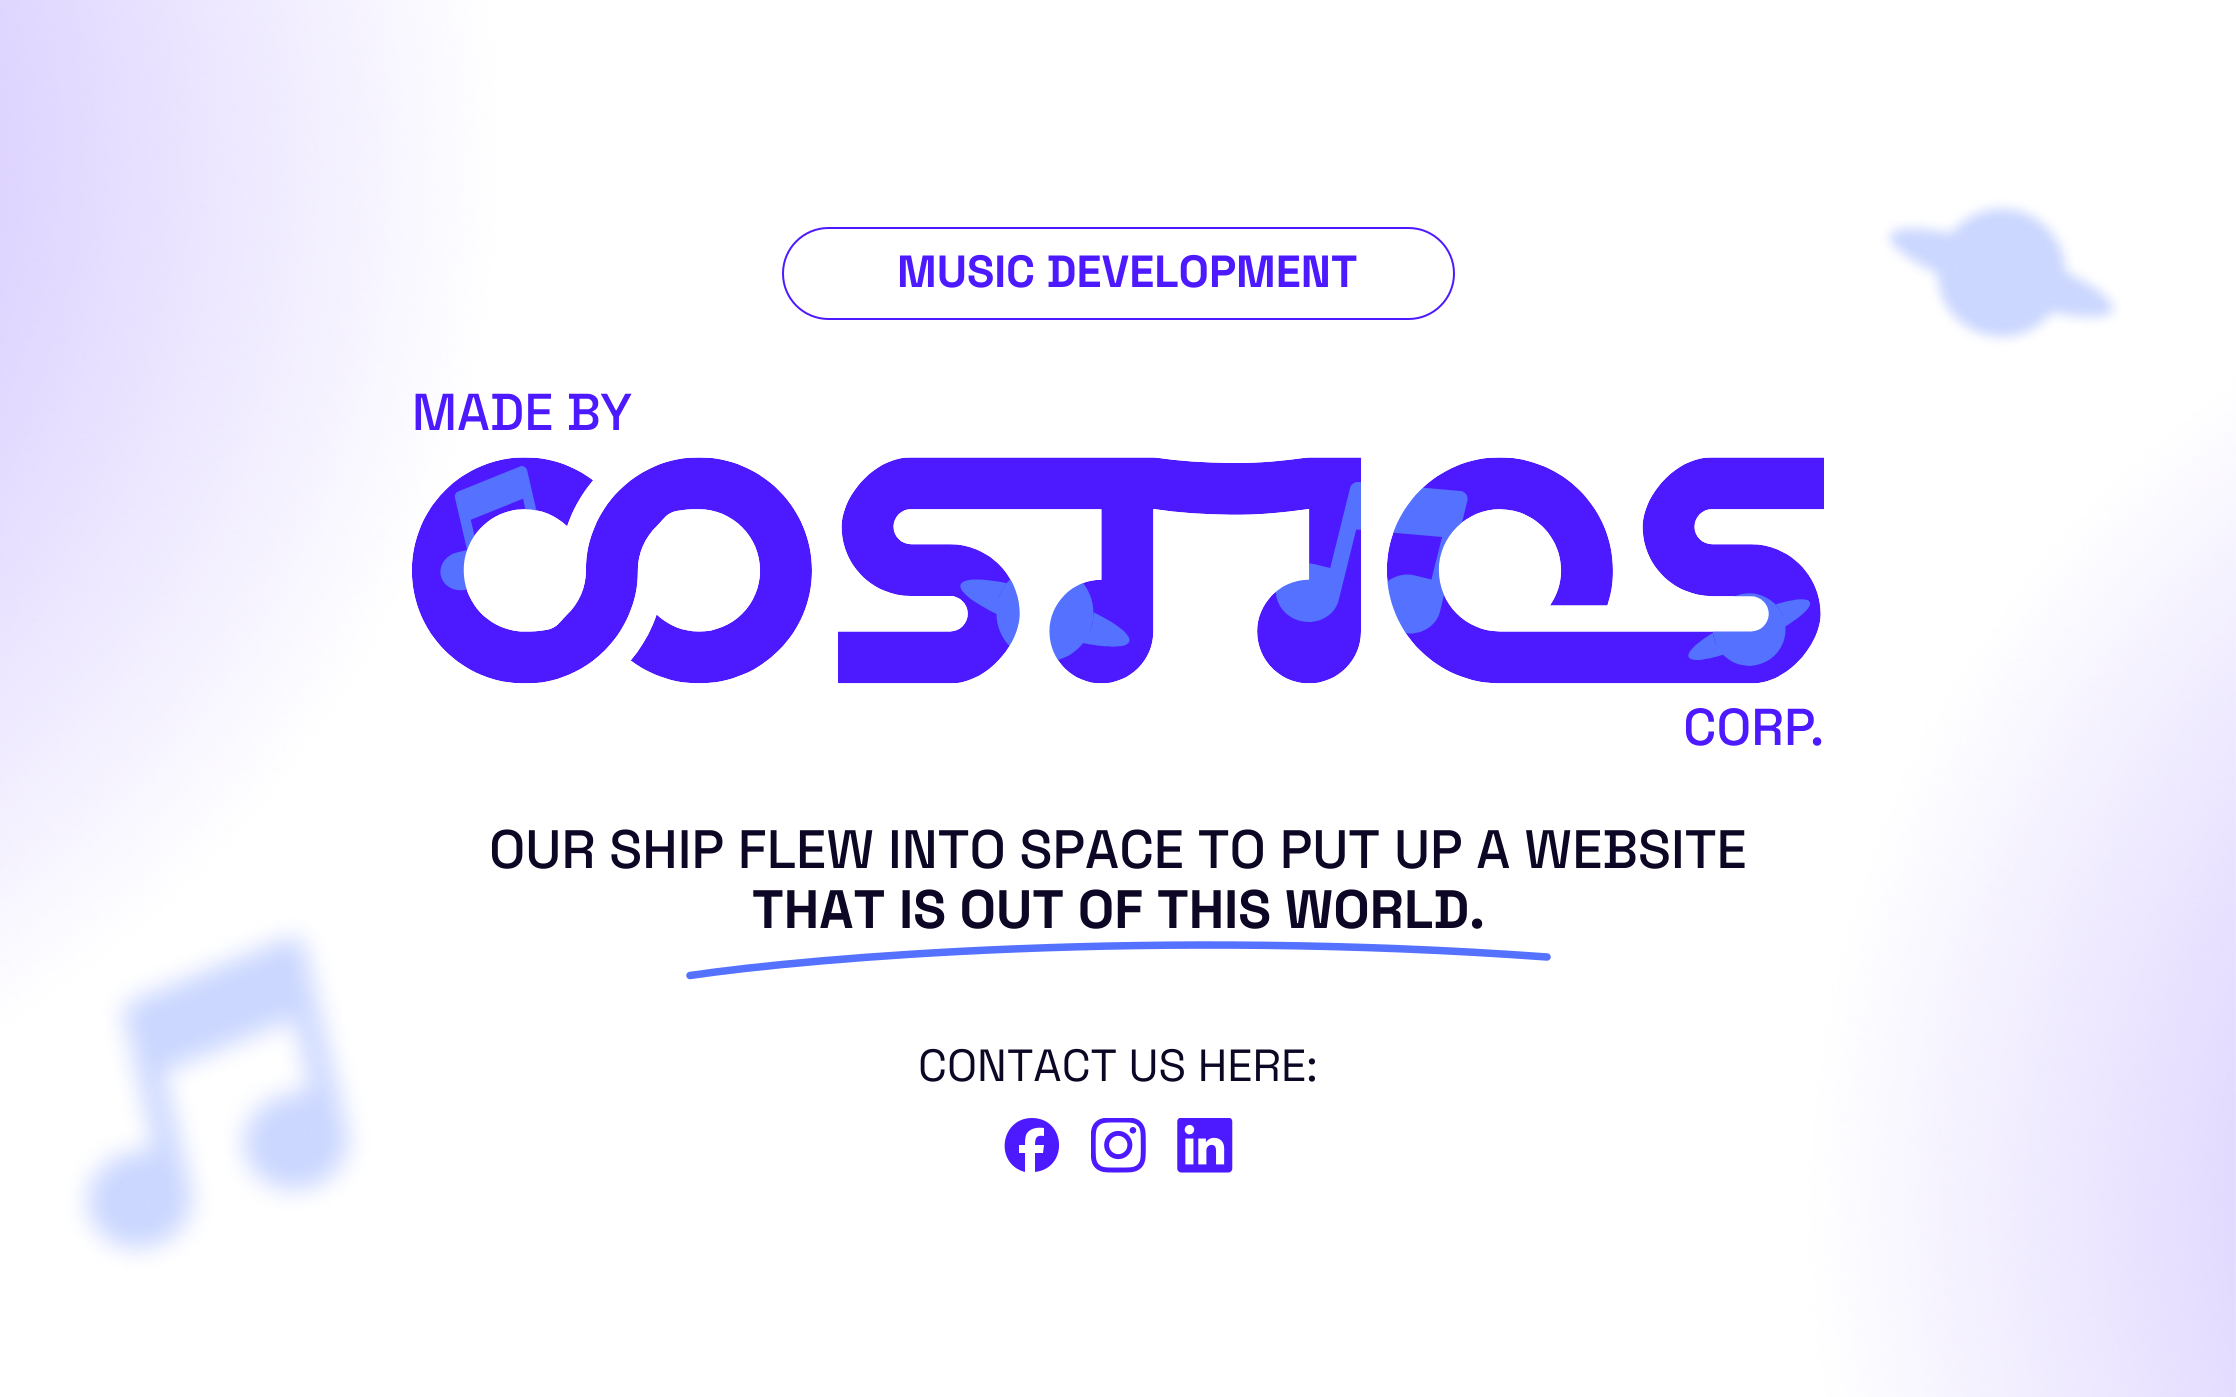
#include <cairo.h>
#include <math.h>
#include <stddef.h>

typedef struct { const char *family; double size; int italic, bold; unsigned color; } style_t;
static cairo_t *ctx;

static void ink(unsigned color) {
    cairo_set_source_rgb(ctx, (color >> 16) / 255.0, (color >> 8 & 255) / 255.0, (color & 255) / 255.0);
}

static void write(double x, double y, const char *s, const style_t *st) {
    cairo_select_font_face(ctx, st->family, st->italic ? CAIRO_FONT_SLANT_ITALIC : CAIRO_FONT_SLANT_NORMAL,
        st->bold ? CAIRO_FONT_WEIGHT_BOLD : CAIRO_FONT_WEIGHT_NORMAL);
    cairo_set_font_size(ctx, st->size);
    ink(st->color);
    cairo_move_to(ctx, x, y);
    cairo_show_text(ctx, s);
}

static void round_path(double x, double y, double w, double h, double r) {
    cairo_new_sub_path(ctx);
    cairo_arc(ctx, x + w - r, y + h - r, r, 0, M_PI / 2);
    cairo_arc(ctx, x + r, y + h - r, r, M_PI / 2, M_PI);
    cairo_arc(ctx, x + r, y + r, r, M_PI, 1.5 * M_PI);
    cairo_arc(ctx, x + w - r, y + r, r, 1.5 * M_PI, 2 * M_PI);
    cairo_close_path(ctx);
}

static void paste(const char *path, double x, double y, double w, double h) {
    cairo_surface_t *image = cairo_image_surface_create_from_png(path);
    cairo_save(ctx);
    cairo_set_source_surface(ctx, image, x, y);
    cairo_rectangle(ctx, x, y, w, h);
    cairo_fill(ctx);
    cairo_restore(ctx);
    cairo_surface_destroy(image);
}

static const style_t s1 = {"Space Grotesk", 45, 0, 1, 0x4d1aff};
static const style_t s2 = {"Space Grotesk Medium", 54, 0, 0, 0x0d0625};
static const style_t s3 = {"Space Grotesk", 54, 0, 1, 0x0d0625};
static const style_t s4 = {"Space Grotesk", 45, 0, 0, 0x0d0625};

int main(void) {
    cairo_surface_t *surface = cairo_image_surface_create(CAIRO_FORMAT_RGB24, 2236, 1397);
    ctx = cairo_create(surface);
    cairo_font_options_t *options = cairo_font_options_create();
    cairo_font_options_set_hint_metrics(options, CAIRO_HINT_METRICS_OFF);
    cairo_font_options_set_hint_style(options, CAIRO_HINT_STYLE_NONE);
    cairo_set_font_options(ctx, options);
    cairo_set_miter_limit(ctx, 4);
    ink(0xffffff);
    cairo_paint(ctx);
    paste("pic1.png", 0, 0, 2236, 1397);
    round_path(783, 228, 671, 91, 45.5);
    ink(0x4d1aff);
    cairo_stroke(ctx);
    write(897, 287, "MUSIC DEVELOPMENT", &s1);
    paste("pic2.png", 412, 393, 1412, 353);
    write(489, 868, "OUR SHIP FLEW INTO SPACE TO PUT UP A WEBSITE", &s2);
    write(752, 928, "THAT IS OUT OF THIS WORLD.", &s3);
    cairo_new_path(ctx);
    cairo_move_to(ctx, 690, 975.5);
    cairo_curve_to(ctx, 812, 957.5, 1154, 928.5, 1547, 957);
    ink(0x5571ff);
    cairo_set_line_width(ctx, 7.5);
    cairo_set_line_cap(ctx, CAIRO_LINE_CAP_ROUND);
    cairo_stroke(ctx);
    write(918, 1081, "CONTACT US HERE:", &s4);
    ink(0x4d1aff);
    cairo_new_path(ctx);
    cairo_move_to(ctx, 1032, 1118);
    cairo_curve_to(ctx, 1066, 1118, 1069, 1168, 1035, 1172);
    cairo_line_to(ctx, 1035, 1153);
    cairo_line_to(ctx, 1043, 1153);
    cairo_line_to(ctx, 1044, 1145);
    cairo_line_to(ctx, 1035, 1145);
    cairo_curve_to(ctx, 1035, 1137, 1037, 1135, 1044, 1136);
    cairo_line_to(ctx, 1044, 1128);
    cairo_curve_to(ctx, 1038, 1127, 1029, 1128, 1026, 1135);
    cairo_curve_to(ctx, 1025, 1138, 1025, 1142, 1025, 1145);
    cairo_line_to(ctx, 1019, 1145);
    cairo_line_to(ctx, 1019, 1153);
    cairo_line_to(ctx, 1025, 1153);
    cairo_line_to(ctx, 1025, 1172);
    cairo_curve_to(ctx, 994, 1164, 1000, 1118, 1032, 1118);
    cairo_close_path(ctx);
    cairo_fill(ctx);
    paste("pic3.png", 1091, 1118, 55, 55);
    paste("pic4.png", 1177, 1118, 56, 55);
    cairo_surface_write_to_png(surface, "screenshot.png");
    cairo_font_options_destroy(options);
    cairo_destroy(ctx);
    cairo_surface_destroy(surface);
    return 0;
}
